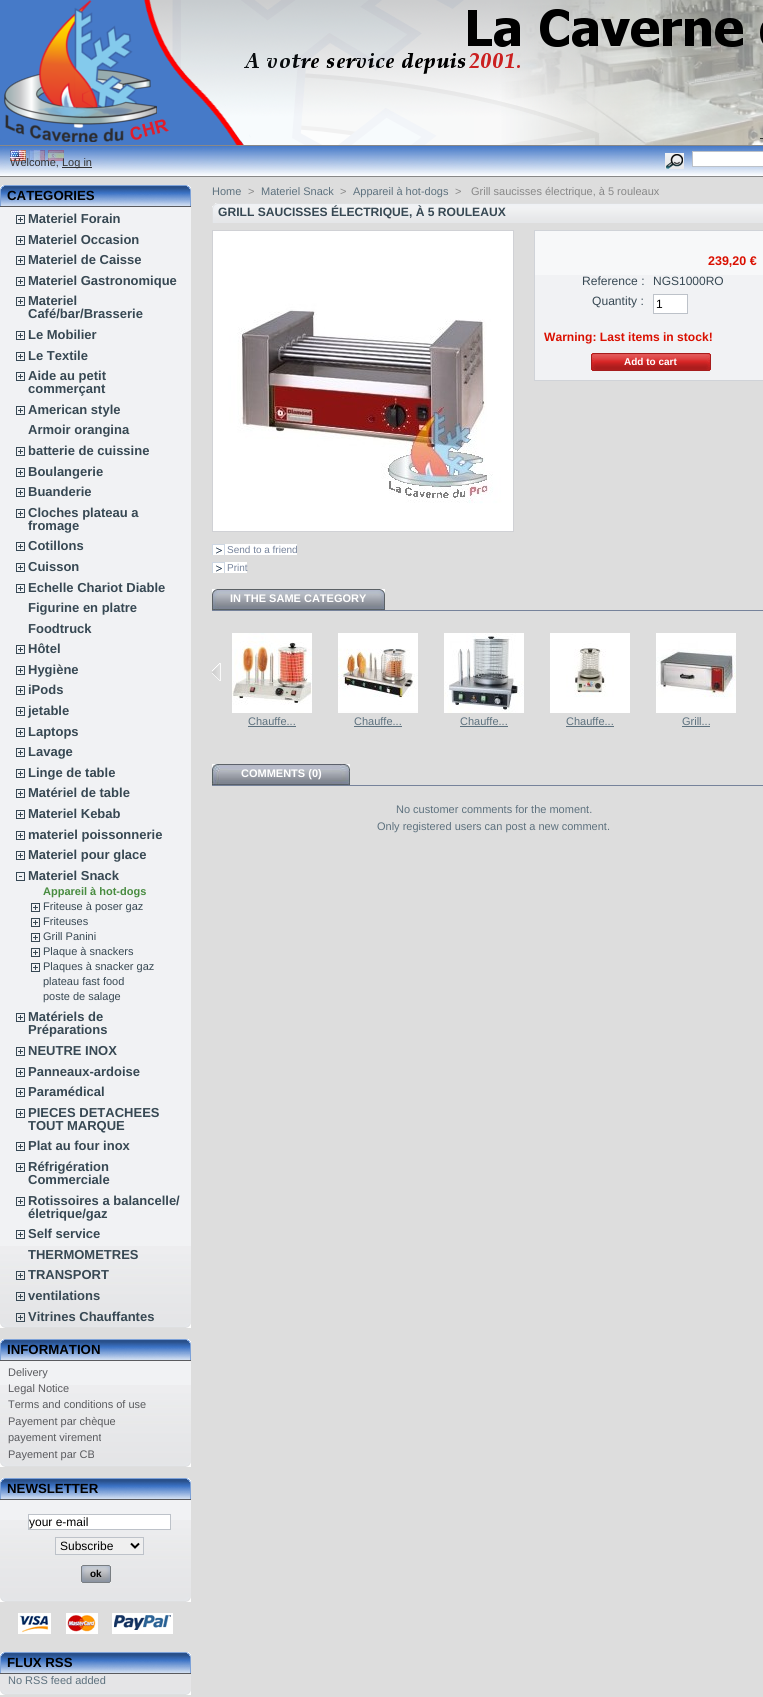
#include <cairo.h>
#include <math.h>
#include <stddef.h>

typedef struct { const char *family; double size; int italic, bold; unsigned color; } style_t;
static cairo_t *ctx;

static void ink(unsigned color) {
    cairo_set_source_rgb(ctx, (color >> 16) / 255.0, (color >> 8 & 255) / 255.0, (color & 255) / 255.0);
}

static void write(double x, double y, const char *s, const style_t *st) {
    cairo_select_font_face(ctx, st->family, st->italic ? CAIRO_FONT_SLANT_ITALIC : CAIRO_FONT_SLANT_NORMAL,
        st->bold ? CAIRO_FONT_WEIGHT_BOLD : CAIRO_FONT_WEIGHT_NORMAL);
    cairo_set_font_size(ctx, st->size);
    ink(st->color);
    cairo_move_to(ctx, x, y);
    cairo_show_text(ctx, s);
}

static void block(double x, double y, double w, double h, unsigned color) {
    ink(color);
    cairo_rectangle(ctx, x, y, w, h);
    cairo_fill(ctx);
}

static void paste(const char *path, double x, double y, double w, double h) {
    cairo_surface_t *image = cairo_image_surface_create_from_png(path);
    cairo_save(ctx);
    cairo_set_source_surface(ctx, image, x, y);
    cairo_rectangle(ctx, x, y, w, h);
    cairo_fill(ctx);
    cairo_restore(ctx);
    cairo_surface_destroy(image);
}

static const style_t s1 = {"Liberation Sans", 11, 0, 0, 0x333333};
static const style_t s2 = {"Liberation Sans", 13.25, 0, 1, 0x000000};
static const style_t s3 = {"Liberation Sans", 13, 0, 1, 0x374853};
static const style_t s4 = {"Liberation Sans", 11, 0, 1, 0x488c40};
static const style_t s5 = {"Liberation Sans", 11, 0, 0, 0x374853};
static const style_t s6 = {"Liberation Sans", 11, 0, 0, 0x595a5e};
static const style_t s7 = {"Liberation Sans", 12, 0, 0, 0x000000};
static const style_t s8 = {"Liberation Sans", 10, 0, 1, 0x000000};
static const style_t s9 = {"Liberation Sans", 11, 0, 0, 0x5d717e};
static const style_t s10 = {"Liberation Sans", 11, 0, 0, 0x888888};
static const style_t s11 = {"Liberation Sans", 12.1, 0, 1, 0x374853};
static const style_t s12 = {"Liberation Sans", 12.5, 0, 1, 0xda0f00};
static const style_t s13 = {"Liberation Sans", 12.1, 0, 0, 0x374853};
static const style_t s14 = {"Liberation Sans", 12, 0, 0, 0x374853};
static const style_t s15 = {"Liberation Sans", 12.1, 0, 1, 0xda0f00};
static const style_t s16 = {"Liberation Sans", 10, 0, 1, 0xffffff};
static const style_t s17 = {"Liberation Sans", 10, 0, 0, 0x76839b};
static const style_t s18 = {"Liberation Sans", 11, 0, 1, 0xffffff};

int main(void) {
    cairo_surface_t *surface = cairo_image_surface_create(CAIRO_FORMAT_RGB24, 763, 1697);
    ctx = cairo_create(surface);
    cairo_font_options_t *options = cairo_font_options_create();
    cairo_font_options_set_hint_metrics(options, CAIRO_HINT_METRICS_OFF);
    cairo_font_options_set_hint_style(options, CAIRO_HINT_STYLE_NONE);
    cairo_set_font_options(ctx, options);
    cairo_set_miter_limit(ctx, 4);
    ink(0xdddddd);
    cairo_paint(ctx);
    paste("pic1.png", 0, 0, 763, 145);
    paste("pic2.png", 0, 146, 763, 30);
    block(0, 145, 763, 1, 0x888888);
    block(0, 176, 763, 1, 0x888888);
    block(760, 138, 3, 1, 0x333333);
    paste("pic3.png", 10, 150, 16, 11);
    paste("pic4.png", 29, 150, 16, 11);
    paste("pic5.png", 48, 150, 16, 11);
    paste("pic6.png", 665, 153, 19, 16);
    ink(0xffffff);
    cairo_rectangle(ctx, 692.5, 151.5, 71, 15);
    cairo_fill_preserve(ctx);
    ink(0xbdc2c9);
    cairo_set_line_width(ctx, 1);
    cairo_stroke(ctx);
    write(10, 166, "Welcome,", &s1);
    block(62, 167, 30, 1, 0x333333);
    write(62, 166, "Log in", &s1);
    paste("pic7.png", 0, 1323, 191, 5);
    paste("pic8.png", 0, 185, 191, 21);
    block(0, 206, 191, 1, 0x595a5e);
    write(7, 200, "CATEGORIES", &s2);
    block(0, 207, 191, 1039, 0xf1f2f4);
    paste("pic9.png", 0, 1246, 191, 77);
    paste("pic10.png", 16, 215, 9, 9);
    write(28, 223, "Materiel Forain", &s3);
    paste("pic10.png", 16, 236, 9, 9);
    write(28, 244, "Materiel Occasion", &s3);
    paste("pic10.png", 16, 256, 9, 9);
    write(28, 264, "Materiel de Caisse", &s3);
    paste("pic10.png", 16, 277, 9, 9);
    write(28, 285, "Materiel Gastronomique", &s3);
    paste("pic10.png", 16, 297, 9, 9);
    write(28, 305, "Materiel", &s3);
    write(28, 318, "Café/bar/Brasserie", &s3);
    paste("pic10.png", 16, 331, 9, 9);
    write(28, 339, "Le Mobilier", &s3);
    paste("pic10.png", 16, 352, 9, 9);
    write(28, 360, "Le Textile", &s3);
    paste("pic10.png", 16, 372, 9, 9);
    write(28, 380, "Aide au petit", &s3);
    write(28, 393, "commerçant", &s3);
    paste("pic10.png", 16, 406, 9, 9);
    write(28, 414, "American style", &s3);
    write(28, 434, "Armoir orangina", &s3);
    paste("pic10.png", 16, 447, 9, 9);
    write(28, 455, "batterie de cuissine", &s3);
    paste("pic10.png", 16, 468, 9, 9);
    write(28, 476, "Boulangerie", &s3);
    paste("pic10.png", 16, 488, 9, 9);
    write(28, 496, "Buanderie", &s3);
    paste("pic10.png", 16, 509, 9, 9);
    write(28, 517, "Cloches plateau a", &s3);
    write(28, 530, "fromage", &s3);
    paste("pic10.png", 16, 542, 9, 9);
    write(28, 550, "Cotillons", &s3);
    paste("pic10.png", 16, 563, 9, 9);
    write(28, 571, "Cuisson", &s3);
    paste("pic10.png", 16, 584, 9, 9);
    write(28, 592, "Echelle Chariot Diable", &s3);
    write(28, 612, "Figurine en platre", &s3);
    write(28, 633, "Foodtruck", &s3);
    paste("pic10.png", 16, 645, 9, 9);
    write(28, 653, "Hôtel", &s3);
    paste("pic10.png", 16, 666, 9, 9);
    write(28, 674, "Hygiène", &s3);
    paste("pic10.png", 16, 686, 9, 9);
    write(28, 694, "iPods", &s3);
    paste("pic10.png", 16, 707, 9, 9);
    write(28, 715, "jetable", &s3);
    paste("pic10.png", 16, 728, 9, 9);
    write(28, 736, "Laptops", &s3);
    paste("pic10.png", 16, 748, 9, 9);
    write(28, 756, "Lavage", &s3);
    paste("pic10.png", 16, 769, 9, 9);
    write(28, 777, "Linge de table", &s3);
    paste("pic10.png", 16, 789, 9, 9);
    write(28, 797, "Matériel de table", &s3);
    paste("pic10.png", 16, 810, 9, 9);
    write(28, 818, "Materiel Kebab", &s3);
    paste("pic10.png", 16, 831, 9, 9);
    write(28, 839, "materiel poissonnerie", &s3);
    paste("pic10.png", 16, 851, 9, 9);
    write(28, 859, "Materiel pour glace", &s3);
    paste("pic11.png", 16, 872, 9, 9);
    write(28, 880, "Materiel Snack", &s3);
    write(43, 895, "Appareil à hot-dogs", &s4);
    paste("pic10.png", 31, 903, 9, 9);
    write(43, 910, "Friteuse à poser gaz", &s5);
    paste("pic10.png", 31, 918, 9, 9);
    write(43, 925, "Friteuses", &s5);
    paste("pic10.png", 31, 933, 9, 9);
    write(43, 940, "Grill Panini", &s5);
    paste("pic10.png", 31, 948, 9, 9);
    write(43, 955, "Plaque à snackers", &s5);
    paste("pic10.png", 31, 963, 9, 9);
    write(43, 970, "Plaques à snacker gaz", &s5);
    write(43, 985, "plateau fast food", &s5);
    write(43, 1000, "poste de salage", &s5);
    paste("pic10.png", 16, 1013, 9, 9);
    write(28, 1021, "Matériels de", &s3);
    write(28, 1034, "Préparations", &s3);
    paste("pic10.png", 16, 1047, 9, 9);
    write(28, 1055, "NEUTRE INOX", &s3);
    paste("pic10.png", 16, 1068, 9, 9);
    write(28, 1076, "Panneaux-ardoise", &s3);
    paste("pic10.png", 16, 1088, 9, 9);
    write(28, 1096, "Paramédical", &s3);
    paste("pic10.png", 16, 1109, 9, 9);
    write(28, 1117, "PIECES DETACHEES", &s3);
    write(28, 1130, "TOUT MARQUE", &s3);
    paste("pic10.png", 16, 1142, 9, 9);
    write(28, 1150, "Plat au four inox", &s3);
    paste("pic10.png", 16, 1163, 9, 9);
    write(28, 1171, "Réfrigération", &s3);
    write(28, 1184, "Commerciale", &s3);
    paste("pic10.png", 16, 1197, 9, 9);
    write(28, 1205, "Rotissoires a balancelle/", &s3);
    write(28, 1218, "életrique/gaz", &s3);
    paste("pic10.png", 16, 1230, 9, 9);
    write(28, 1238, "Self service", &s3);
    write(28, 1259, "THERMOMETRES", &s3);
    paste("pic12.png", 16, 1271, 9, 9);
    write(28, 1279, "TRANSPORT", &s3);
    paste("pic13.png", 16, 1292, 9, 9);
    write(28, 1300, "ventilations", &s3);
    paste("pic14.png", 16, 1313, 9, 9);
    write(28, 1321, "Vitrines Chauffantes", &s3);
    paste("pic7.png", 0, 1462, 191, 5);
    paste("pic8.png", 0, 1339, 191, 21);
    block(0, 1360, 191, 1, 0x595a5e);
    write(7, 1354, "INFORMATION", &s2);
    block(0, 1361, 191, 24, 0xf1f2f4);
    paste("pic15.png", 0, 1385, 191, 77);
    write(8, 1376, "Delivery", &s6);
    write(8, 1392, "Legal Notice", &s6);
    write(8, 1408, "Terms and conditions of use", &s6);
    write(8, 1425, "Payement par chèque", &s6);
    write(8, 1441, "payement virement", &s6);
    write(8, 1458, "Payement par CB", &s6);
    paste("pic7.png", 0, 1597, 191, 5);
    paste("pic8.png", 0, 1478, 191, 21);
    block(0, 1499, 191, 1, 0x595a5e);
    write(7, 1493, "NEWSLETTER", &s2);
    block(0, 1500, 191, 20, 0xf1f2f4);
    paste("pic15.png", 0, 1520, 191, 77);
    ink(0xffffff);
    cairo_rectangle(ctx, 28.5, 1514.5, 142, 15);
    cairo_fill_preserve(ctx);
    ink(0xbdc2c9);
    cairo_stroke(ctx);
    write(29, 1526, "your e-mail", &s7);
    ink(0xefefef);
    cairo_rectangle(ctx, 55.5, 1537.5, 88, 17);
    cairo_fill_preserve(ctx);
    ink(0xbdc2c9);
    cairo_stroke(ctx);
    cairo_new_path(ctx);
    cairo_move_to(ctx, 131, 1543.5);
    cairo_line_to(ctx, 135, 1547.5);
    cairo_line_to(ctx, 139, 1543.5);
    ink(0x000000);
    cairo_set_line_width(ctx, 2);
    cairo_stroke(ctx);
    write(60, 1550, "Subscribe", &s7);
    block(81, 1565, 30, 18, 0xefefef);
    paste("pic16.png", 81, 1565, 30, 18);
    write(90, 1577, "ok", &s8);
    paste("pic17.png", 18, 1613, 33, 21);
    paste("pic18.png", 66, 1613, 32, 21);
    paste("pic19.png", 112, 1613, 61, 21);
    paste("pic7.png", 0, 1690, 191, 5);
    paste("pic8.png", 0, 1652, 191, 21);
    block(0, 1673, 191, 1, 0x595a5e);
    write(7, 1667, "FLUX RSS", &s2);
    block(0, 1674, 191, 16, 0xe5e5e7);
    write(8, 1684, "No RSS feed added", &s9);
    write(212, 195, "Home", &s9);
    write(248, 195, ">", &s10);
    write(261, 195, "Materiel Snack", &s9);
    write(340, 195, ">", &s10);
    write(353, 195, "Appareil à hot-dogs", &s9);
    write(455, 195, ">", &s10);
    write(471, 195, "Grill saucisses électrique, à 5 rouleaux", &s10);
    paste("pic20.png", 212, 203, 551, 20);
    write(218, 216, "GRILL SAUCISSES ÉLECTRIQUE, À 5 ROULEAUX", &s11);
    block(535, 275, 228, 105, 0xf1f2f4);
    block(535, 231, 228, 44, 0xf7f8f9);
    cairo_rectangle(ctx, 534.5, 230.5, 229, 150);
    ink(0xd0d3d8);
    cairo_set_line_width(ctx, 1);
    cairo_stroke(ctx);
    write(708, 265, "239,20 €", &s12);
    write(582, 285, "Reference :", &s13);
    write(653, 285, "NGS1000RO", &s14);
    write(592, 305, "Quantity :", &s13);
    ink(0xffffff);
    cairo_rectangle(ctx, 653.5, 294.5, 34, 19);
    cairo_fill_preserve(ctx);
    ink(0xbdc2c9);
    cairo_stroke(ctx);
    write(656, 308, "1", &s7);
    write(544, 341, "Warning: Last items in stock!", &s15);
    block(591, 353, 120, 18, 0xefefef);
    paste("pic21.png", 591, 353, 120, 18);
    write(624, 365, "Add to cart", &s16);
    cairo_rectangle(ctx, 212.5, 230.5, 301, 301);
    ink(0xd0d1d5);
    cairo_stroke(ctx);
    paste("pic22.png", 213, 231, 300, 300);
    paste("pic23.png", 212, 544, 13, 11);
    block(225, 544, 72, 11, 0xffffff);
    write(227, 553, "Send to a friend", &s17);
    paste("pic23.png", 212, 562, 13, 11);
    block(225, 562, 22, 11, 0xffffff);
    write(227, 571, "Print", &s17);
    block(212, 610, 551, 1, 0x76839b);
    paste("pic24.png", 212, 589, 173, 21);
    write(230, 602, "IN THE SAME CATEGORY", &s18);
    paste("pic25.png", 212, 663, 9, 18);
    paste("pic26.png", 232, 633, 80, 80);
    write(248, 725, "Chauffe...", &s9);
    block(248, 726, 48, 1, 0x5d717e);
    paste("pic27.png", 338, 633, 80, 80);
    write(354, 725, "Chauffe...", &s9);
    block(354, 726, 48, 1, 0x5d717e);
    paste("pic28.png", 444, 633, 80, 80);
    write(460, 725, "Chauffe...", &s9);
    block(460, 726, 48, 1, 0x5d717e);
    paste("pic29.png", 550, 633, 80, 80);
    write(566, 725, "Chauffe...", &s9);
    block(566, 726, 48, 1, 0x5d717e);
    paste("pic30.png", 656, 633, 80, 80);
    write(682, 725, "Grill...", &s9);
    block(682, 726, 28, 1, 0x5d717e);
    block(212, 785, 551, 1, 0x76839b);
    paste("pic31.png", 212, 764, 138, 21);
    write(241, 777, "COMMENTS (0)", &s18);
    write(396, 813, "No customer comments for the moment.", &s9);
    write(377, 830, "Only registered users can post a new comment.", &s9);
    cairo_surface_write_to_png(surface, "screenshot.png");
    cairo_font_options_destroy(options);
    cairo_destroy(ctx);
    cairo_surface_destroy(surface);
    return 0;
}
